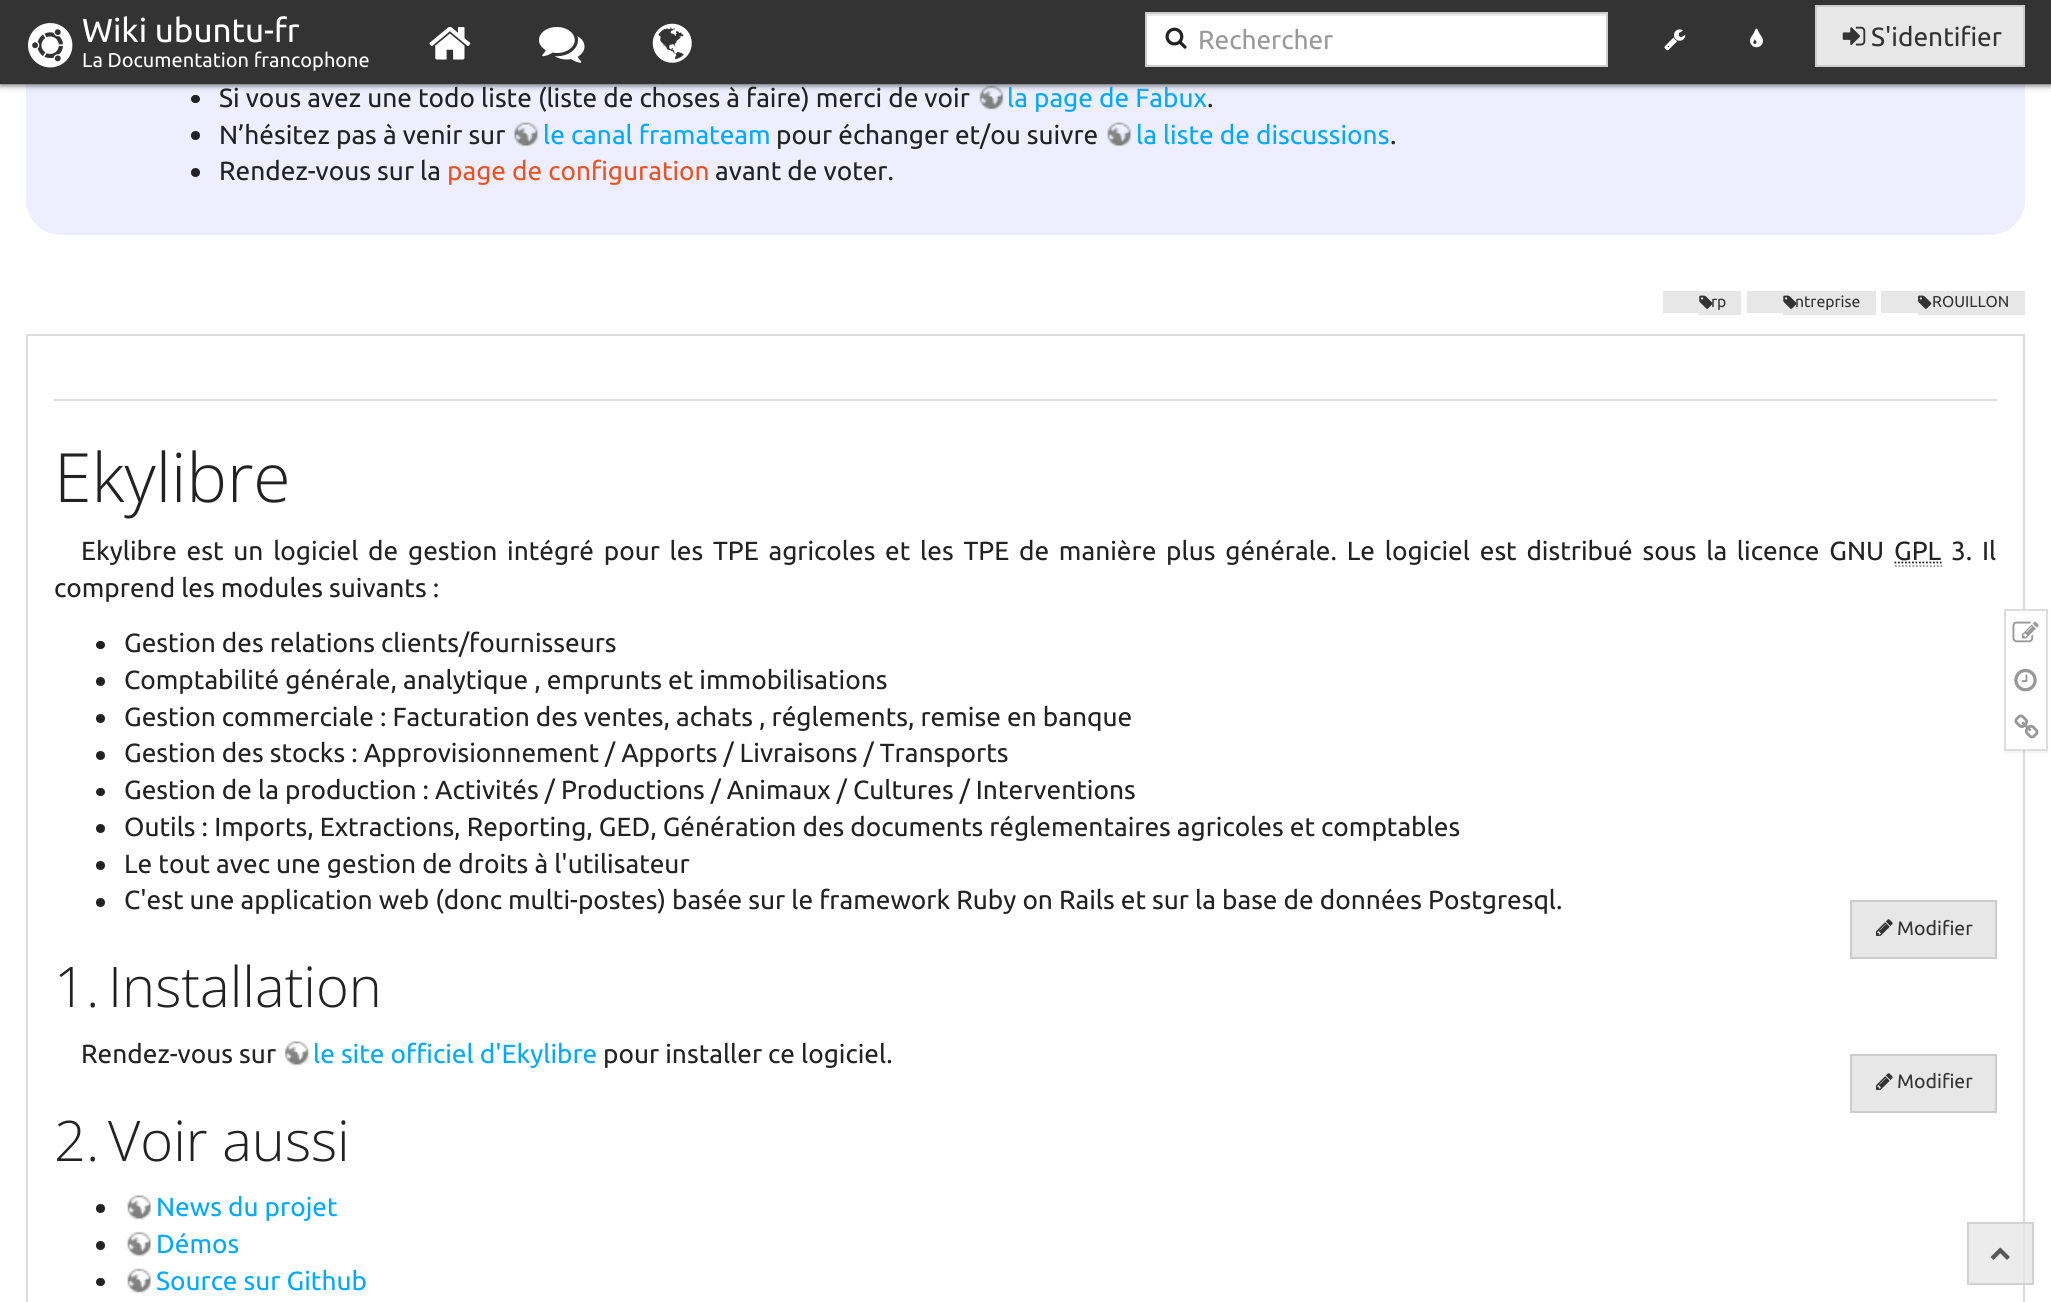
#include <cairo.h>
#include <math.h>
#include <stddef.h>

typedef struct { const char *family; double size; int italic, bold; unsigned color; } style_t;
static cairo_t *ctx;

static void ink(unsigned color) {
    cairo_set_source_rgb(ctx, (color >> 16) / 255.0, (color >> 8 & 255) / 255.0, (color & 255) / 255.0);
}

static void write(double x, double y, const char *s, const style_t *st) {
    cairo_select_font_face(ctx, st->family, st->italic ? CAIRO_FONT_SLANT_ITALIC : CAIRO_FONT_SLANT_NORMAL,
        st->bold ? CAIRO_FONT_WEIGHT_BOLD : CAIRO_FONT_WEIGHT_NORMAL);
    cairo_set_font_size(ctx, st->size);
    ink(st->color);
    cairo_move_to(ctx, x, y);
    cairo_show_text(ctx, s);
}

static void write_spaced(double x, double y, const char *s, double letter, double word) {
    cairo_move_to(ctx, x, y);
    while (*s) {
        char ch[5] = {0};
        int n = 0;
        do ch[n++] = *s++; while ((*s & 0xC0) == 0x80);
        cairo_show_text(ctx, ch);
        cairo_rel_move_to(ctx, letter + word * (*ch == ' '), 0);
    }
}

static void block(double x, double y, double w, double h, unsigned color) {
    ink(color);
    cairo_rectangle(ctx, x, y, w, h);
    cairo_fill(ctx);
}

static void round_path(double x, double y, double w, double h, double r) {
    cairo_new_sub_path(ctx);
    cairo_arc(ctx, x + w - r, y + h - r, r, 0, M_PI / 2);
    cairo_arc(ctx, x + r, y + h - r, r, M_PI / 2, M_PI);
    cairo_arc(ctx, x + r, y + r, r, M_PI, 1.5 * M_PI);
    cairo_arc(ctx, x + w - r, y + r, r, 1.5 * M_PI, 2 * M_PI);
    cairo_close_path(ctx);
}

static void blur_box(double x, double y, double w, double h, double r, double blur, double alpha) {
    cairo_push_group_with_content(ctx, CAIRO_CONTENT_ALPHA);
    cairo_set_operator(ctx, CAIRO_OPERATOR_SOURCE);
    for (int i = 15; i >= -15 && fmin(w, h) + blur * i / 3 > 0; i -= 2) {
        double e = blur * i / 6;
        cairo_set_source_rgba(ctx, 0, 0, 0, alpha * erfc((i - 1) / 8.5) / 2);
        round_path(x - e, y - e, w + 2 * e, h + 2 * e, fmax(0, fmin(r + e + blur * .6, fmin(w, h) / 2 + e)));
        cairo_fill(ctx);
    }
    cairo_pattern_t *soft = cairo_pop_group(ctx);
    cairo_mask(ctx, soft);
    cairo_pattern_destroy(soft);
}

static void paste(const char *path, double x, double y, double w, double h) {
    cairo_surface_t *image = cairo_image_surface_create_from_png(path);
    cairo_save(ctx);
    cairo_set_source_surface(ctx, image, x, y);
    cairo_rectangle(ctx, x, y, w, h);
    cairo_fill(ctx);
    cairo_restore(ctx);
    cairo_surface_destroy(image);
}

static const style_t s1 = {"Ubuntu", 33.25, 0, 0, 0xffffff};
static const style_t s2 = {"Ubuntu", 20, 0, 0, 0xffffff};
static const style_t s3 = {"Ubuntu", 26.25, 0, 0, 0x999999};
static const style_t s4 = {"Ubuntu", 26.25, 0, 0, 0x333333};
static const style_t s5 = {"Ubuntu", 26.25, 0, 0, 0x222222};
static const style_t s6 = {"Ubuntu", 26.25, 0, 0, 0x00aaff};
static const style_t s7 = {"Ubuntu", 26.25, 0, 0, 0xe95420};
static const style_t s8 = {"Ubuntu", 15.75, 0, 0, 0x333333};
static const style_t s9 = {"Open Sans Light", 68, 0, 0, 0x222222};
static const style_t s10 = {"Ubuntu", 19.5, 0, 0, 0x333333};
static const style_t s11 = {"Open Sans Light", 56, 0, 0, 0x222222};

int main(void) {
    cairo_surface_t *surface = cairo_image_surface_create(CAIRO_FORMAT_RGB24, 2051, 1302);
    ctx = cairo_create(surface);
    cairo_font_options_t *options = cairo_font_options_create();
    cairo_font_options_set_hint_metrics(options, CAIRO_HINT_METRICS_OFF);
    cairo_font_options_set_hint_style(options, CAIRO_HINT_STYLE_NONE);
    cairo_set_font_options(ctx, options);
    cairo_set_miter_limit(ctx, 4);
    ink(0xffffff);
    cairo_paint(ctx);
    ink(0xeeeeff);
    round_path(26, -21, 1999, 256, 35);
    cairo_fill(ctx);
    ink(0x222222);
    round_path(191, 95, 9, 8, 4);
    cairo_fill(ctx);
    paste("pic9.png", 979, 85, 25, 26);
    ink(0x222222);
    blur_box(0, 0, 2051, 84, 0, 3.5, 1);
    block(0, 0, 2051, 84, 0x333333);
    paste("pic1.png", 28, 23, 45, 45);
    write(82, 42, "Wiki ubuntu-fr", &s1);
    write(82, 67, "La Documentation francophone", &s2);
    paste("pic2.png", 429, 26, 42, 34);
    paste("pic3.png", 539, 27, 46, 36);
    paste("pic4.png", 652, 23, 40, 40);
    block(1147, 16, 459, 49, 0xffffff);
    block(1146, 14, 461, 2, 0xececec);
    cairo_rectangle(ctx, 1146, 13, 461, 53);
    ink(0xcccccc);
    cairo_stroke(ctx);
    paste("pic5.png", 1165, 27, 22, 22);
    write(1198, 49, "Rechercher", &s3);
    paste("pic6.png", 1664, 29, 22, 22);
    paste("pic7.png", 1750, 28, 13, 20);
    ink(0xe7e7e7);
    cairo_rectangle(ctx, 1816, 6, 208, 60);
    cairo_fill_preserve(ctx);
    ink(0xcccccc);
    cairo_stroke(ctx);
    paste("pic8.png", 1842, 26, 24, 20);
    write(1871, 46, "S'identifier", &s4);
    write(219, 107, "Si vous avez une todo liste (liste de choses à faire) merci de voir", &s5);
    write(1007, 107, "la page de Fabux", &s6);
    write(1207, 107, ".", &s5);
    cairo_new_path(ctx);
    cairo_arc(ctx, 195.5, 135.5, 4.5, 0, 2 * M_PI);
    cairo_fill(ctx);
    write(219, 144, "N’hésitez pas à venir sur", &s5);
    paste("pic10.png", 514, 122, 25, 26);
    write(543, 144, "le canal framateam", &s6);
    write(776, 144, "pour échanger et/ou suivre", &s5);
    paste("pic11.png", 1107, 122, 25, 26);
    write(1136, 144, "la liste de discussions", &s6);
    write(1390, 144, ".", &s5);
    cairo_new_path(ctx);
    cairo_arc(ctx, 195.5, 172.5, 4.5, 0, 2 * M_PI);
    cairo_fill(ctx);
    write(219, 180, "Rendez-vous sur la", &s5);
    write(447, 180, "page de configuration", &s7);
    write(715, 180, "avant de voter.", &s5);
    block(1663, 291, 35, 22, 0xe7e7e7);
    block(1698, 291, 43, 24, 0xe7e7e7);
    paste("pic12.png", 1699, 295, 14, 14);
    write(1711, 307, "rp", &s8);
    block(1747, 291, 36, 22, 0xe7e7e7);
    block(1783, 291, 93, 24, 0xe7e7e7);
    paste("pic12.png", 1783, 295, 14, 14);
    write(1795, 307, "ntreprise", &s8);
    block(1881, 291, 37, 22, 0xe7e7e7);
    block(1918, 291, 107, 24, 0xe7e7e7);
    paste("pic13.png", 1918, 295, 14, 14);
    write(1932, 307, "ROUILLON", &s8);
    cairo_rectangle(ctx, 27, 335, 1997, 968);
    ink(0xdddddd);
    cairo_stroke(ctx);
    block(54, 399, 1943, 2, 0xdddddd);
    write(54, 502, "Ekylibre", &s9);
    cairo_select_font_face(ctx, "Ubuntu", CAIRO_FONT_SLANT_NORMAL, CAIRO_FONT_WEIGHT_NORMAL);
    cairo_set_font_size(ctx, 26.25);
    write_spaced(81, 560, "Ekylibre est un logiciel de gestion intégré pour les TPE agricoles et les TPE de manière plus générale. Le logiciel est distribué sous la licence GNU", 0, 3.7);
    write(1894, 560, "GPL", &s5);
    cairo_new_path(ctx);
    cairo_move_to(ctx, 1895, 566);
    cairo_line_to(ctx, 1942.5, 566);
    ink(0x999999);
    cairo_set_line_width(ctx, 1.8);
    cairo_set_dash(ctx, (double[]){1.75, 1.75}, 2, 0);
    cairo_stroke(ctx);
    cairo_new_path(ctx);
    cairo_move_to(ctx, 1894.5, 562.5);
    cairo_line_to(ctx, 1941.5, 562.5);
    ink(0x222222);
    cairo_stroke(ctx);
    write_spaced(1951, 560, "3. Il", 0, 3.7);
    write(54, 597, "comprend les modules suivants :", &s5);
    round_path(96, 641, 9, 8, 4);
    cairo_fill(ctx);
    write(124, 652, "Gestion des relations clients/fournisseurs", &s5);
    cairo_new_path(ctx);
    cairo_arc(ctx, 100.5, 681.5, 4.5, 0, 2 * M_PI);
    cairo_fill(ctx);
    write(124, 689, "Comptabilité générale, analytique , emprunts et immobilisations", &s5);
    cairo_new_path(ctx);
    cairo_arc(ctx, 100.5, 718.5, 4.5, 0, 2 * M_PI);
    cairo_fill(ctx);
    write(124, 726, "Gestion commerciale : Facturation des ventes, achats , réglements, remise en banque", &s5);
    cairo_new_path(ctx);
    cairo_arc(ctx, 100.5, 755.5, 4.5, 0, 2 * M_PI);
    cairo_fill(ctx);
    write(124, 762, "Gestion des stocks : Approvisionnement / Apports / Livraisons / Transports", &s5);
    round_path(96, 788, 9, 8, 4);
    cairo_fill(ctx);
    write(124, 799, "Gestion de la production : Activités / Productions / Animaux / Cultures / Interventions", &s5);
    cairo_new_path(ctx);
    cairo_arc(ctx, 100.5, 828.5, 4.5, 0, 2 * M_PI);
    cairo_fill(ctx);
    write(124, 836, "Outils : Imports, Extractions, Reporting, GED, Génération des documents réglementaires agricoles et comptables", &s5);
    cairo_new_path(ctx);
    cairo_arc(ctx, 100.5, 865.5, 4.5, 0, 2 * M_PI);
    cairo_fill(ctx);
    write(124, 873, "Le tout avec une gestion de droits à l'utilisateur", &s5);
    cairo_new_path(ctx);
    cairo_arc(ctx, 100.5, 902.5, 4.5, 0, 2 * M_PI);
    cairo_fill(ctx);
    write(124, 909, "C'est une application web (donc multi-postes) basée sur le framework Ruby on Rails et sur la base de données Postgresql.", &s5);
    ink(0xe7e7e7);
    cairo_rectangle(ctx, 1851, 901, 145, 57);
    cairo_fill_preserve(ctx);
    ink(0xcccccc);
    cairo_set_line_width(ctx, 2);
    cairo_set_dash(ctx, NULL, 0, 0);
    cairo_stroke(ctx);
    paste("pic14.png", 1876, 919, 17, 17);
    write(1897, 935, "Modifier", &s10);
    write(54, 1007, "1.", &s11);
    write(108, 1007, "Installation", &s11);
    write(81, 1063, "Rendez-vous sur", &s5);
    paste("pic15.png", 284, 1041, 26, 26);
    write(313, 1063, "le site officiel d'Ekylibre", &s6);
    write(603, 1063, "pour installer ce logiciel.", &s5);
    ink(0xe7e7e7);
    cairo_rectangle(ctx, 1851, 1055, 145, 57);
    cairo_fill_preserve(ctx);
    ink(0xcccccc);
    cairo_stroke(ctx);
    paste("pic14.png", 1876, 1073, 17, 17);
    write(1897, 1088, "Modifier", &s10);
    write(54, 1161, "2.", &s11);
    write(108, 1161, "Voir aussi", &s11);
    cairo_new_path(ctx);
    cairo_arc(ctx, 100.5, 1208.5, 4.5, 0, 2 * M_PI);
    cairo_fill(ctx);
    paste("pic16.png", 127, 1195, 25, 25);
    write(156, 1216, "News du projet", &s6);
    ink(0x222222);
    cairo_new_path(ctx);
    cairo_arc(ctx, 100.5, 1245.5, 4.5, 0, 2 * M_PI);
    cairo_fill(ctx);
    paste("pic17.png", 127, 1231, 25, 26);
    write(156, 1253, "Démos", &s6);
    ink(0x222222);
    round_path(96, 1278, 9, 8, 4);
    cairo_fill(ctx);
    paste("pic18.png", 127, 1268, 25, 26);
    write(156, 1290, "Source sur Github", &s6);
    ink(0x000000);
    blur_box(2004, 611, 44, 142, 0, 1, 0.05);
    ink(0xffffff);
    cairo_rectangle(ctx, 2005, 610, 42, 140);
    cairo_fill_preserve(ctx);
    ink(0xdddddd);
    cairo_stroke(ctx);
    paste("pic19.png", 2012, 621, 27, 22);
    paste("pic20.png", 2014, 668, 23, 24);
    paste("pic21.png", 2014, 714, 25, 25);
    cairo_set_source_rgba(ctx, 0.906, 0.906, 0.906, 0.8);
    cairo_rectangle(ctx, 1967, 1222, 67, 63);
    cairo_fill(ctx);
    cairo_rectangle(ctx, 1968, 1223, 65, 61);
    cairo_set_source_rgba(ctx, 0.8, 0.8, 0.8, 0.8);
    cairo_stroke(ctx);
    paste("pic22.png", 1990, 1247, 20, 13);
    cairo_surface_write_to_png(surface, "screenshot.png");
    cairo_font_options_destroy(options);
    cairo_destroy(ctx);
    cairo_surface_destroy(surface);
    return 0;
}
